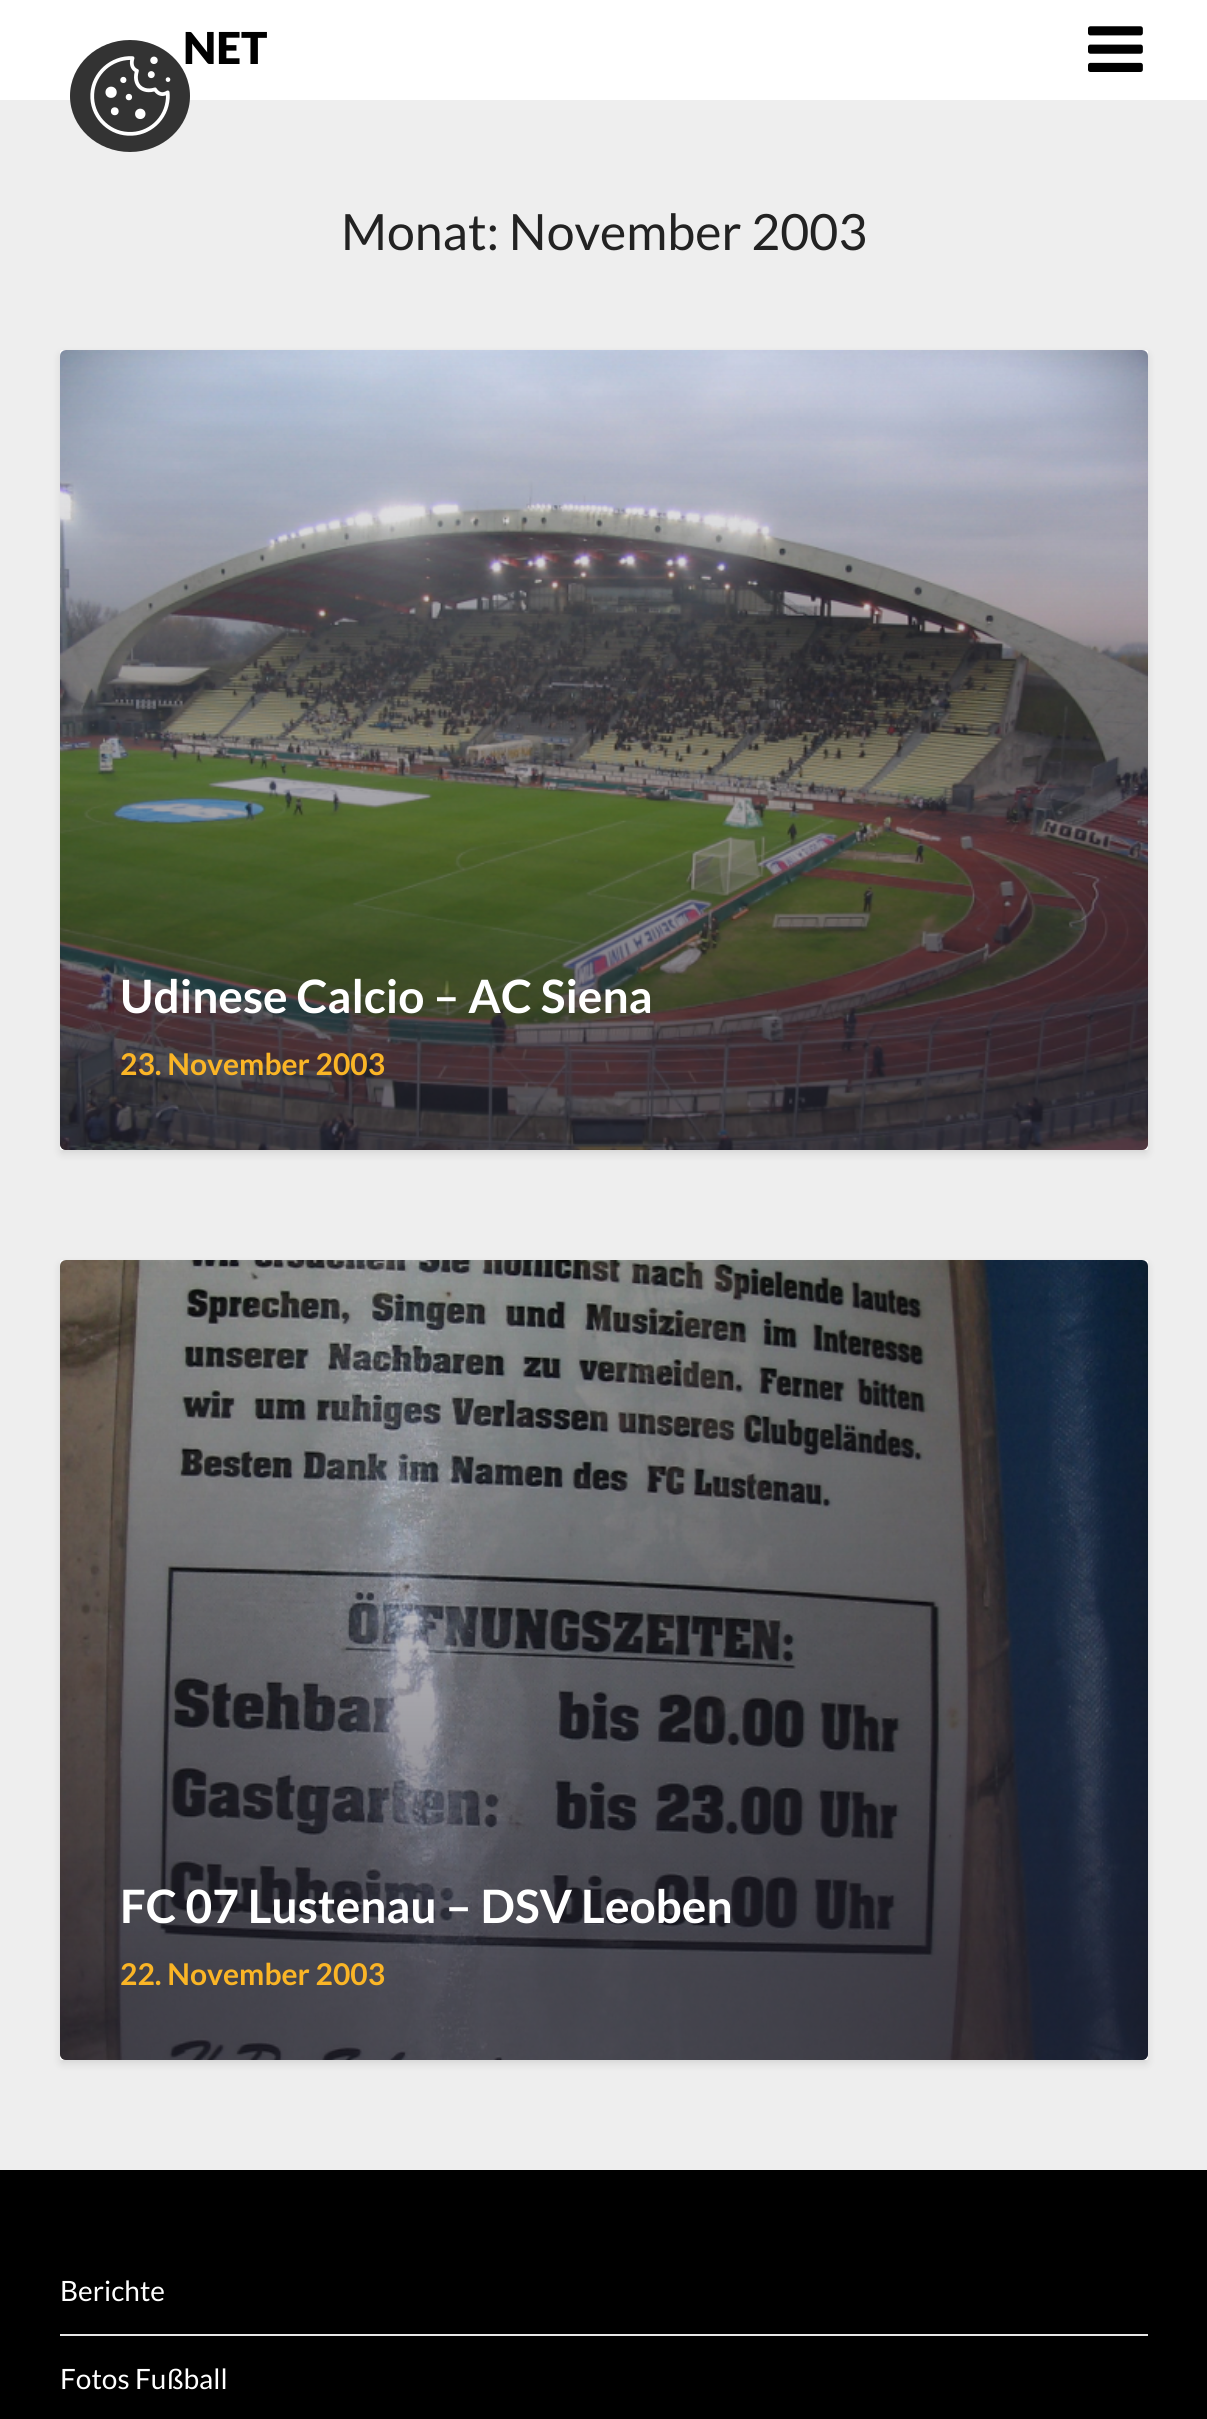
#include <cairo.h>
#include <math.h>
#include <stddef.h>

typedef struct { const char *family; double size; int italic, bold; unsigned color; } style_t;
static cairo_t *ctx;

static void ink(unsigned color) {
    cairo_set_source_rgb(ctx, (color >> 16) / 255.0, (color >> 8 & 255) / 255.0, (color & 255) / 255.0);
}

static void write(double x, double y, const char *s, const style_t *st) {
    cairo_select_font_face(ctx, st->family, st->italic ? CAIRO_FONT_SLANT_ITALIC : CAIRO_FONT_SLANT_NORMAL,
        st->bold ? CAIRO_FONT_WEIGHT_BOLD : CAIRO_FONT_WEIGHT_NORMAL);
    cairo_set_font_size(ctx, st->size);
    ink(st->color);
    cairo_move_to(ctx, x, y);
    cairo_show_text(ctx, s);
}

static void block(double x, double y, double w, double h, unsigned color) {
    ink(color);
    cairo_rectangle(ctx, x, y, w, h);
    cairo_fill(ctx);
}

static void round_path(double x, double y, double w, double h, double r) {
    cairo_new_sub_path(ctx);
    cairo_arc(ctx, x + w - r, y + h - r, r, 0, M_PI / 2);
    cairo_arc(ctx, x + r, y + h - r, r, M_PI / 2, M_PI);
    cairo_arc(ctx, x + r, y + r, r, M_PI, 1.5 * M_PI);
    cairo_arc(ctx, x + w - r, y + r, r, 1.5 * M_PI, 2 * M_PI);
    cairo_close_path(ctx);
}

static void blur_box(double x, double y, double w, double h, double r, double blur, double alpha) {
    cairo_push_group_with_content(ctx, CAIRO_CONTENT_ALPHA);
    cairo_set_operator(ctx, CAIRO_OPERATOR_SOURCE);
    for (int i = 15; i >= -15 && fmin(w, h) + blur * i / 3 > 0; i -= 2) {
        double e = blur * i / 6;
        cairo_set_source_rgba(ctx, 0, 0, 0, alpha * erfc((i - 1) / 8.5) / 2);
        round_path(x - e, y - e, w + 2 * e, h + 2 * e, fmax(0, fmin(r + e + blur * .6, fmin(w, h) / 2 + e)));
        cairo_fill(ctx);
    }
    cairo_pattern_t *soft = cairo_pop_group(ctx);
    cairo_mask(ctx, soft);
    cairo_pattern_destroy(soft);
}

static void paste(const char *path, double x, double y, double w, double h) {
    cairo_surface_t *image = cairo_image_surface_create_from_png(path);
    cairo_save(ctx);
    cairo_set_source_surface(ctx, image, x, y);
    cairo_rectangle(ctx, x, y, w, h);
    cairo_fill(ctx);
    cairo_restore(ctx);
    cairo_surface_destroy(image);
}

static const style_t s1 = {"Lato Black", 44, 0, 0, 0x000000};
static const style_t s2 = {"Lato", 50, 0, 0, 0x222222};
static const style_t s3 = {"Lato", 46, 0, 1, 0xffffff};
static const style_t s4 = {"Lato", 30, 0, 1, 0xfab526};
static const style_t s5 = {"Lato", 28, 0, 0, 0xffffff};

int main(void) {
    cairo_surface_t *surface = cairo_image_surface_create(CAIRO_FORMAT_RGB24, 1207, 2419);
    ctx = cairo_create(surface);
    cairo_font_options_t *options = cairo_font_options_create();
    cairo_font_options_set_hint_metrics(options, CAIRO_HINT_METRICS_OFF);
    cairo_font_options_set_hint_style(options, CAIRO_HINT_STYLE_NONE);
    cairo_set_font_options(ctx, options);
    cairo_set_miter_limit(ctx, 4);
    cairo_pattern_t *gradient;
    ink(0xeeeeee);
    cairo_paint(ctx);
    block(0, 0, 1207, 100, 0xffffff);
    write(183, 64, "NET", &s1);
    paste("pic1.png", 1088, 26, 55, 46);
    write(341, 250, "Monat: November 2003", &s2);
    ink(0x000000);
    blur_box(60, 354, 1088, 800, 2, 4, 0.1);
    ink(0xffffff);
    round_path(60, 350, 1088, 800, 2);
    cairo_fill(ctx);
    paste("pic2.png", 60, 350, 1088, 800);
    gradient = cairo_pattern_create_linear(604, 350, 604, 1150);
    cairo_pattern_add_color_stop_rgba(gradient, 0, 0.125, 0.118, 0.173, 0);
    cairo_pattern_add_color_stop_rgba(gradient, 0.88, 0.125, 0.118, 0.173, 0.64);
    cairo_pattern_add_color_stop_rgba(gradient, 0.89, 0.125, 0.118, 0.173, 0.65);
    cairo_set_source(ctx, gradient);
    cairo_pattern_destroy(gradient);
    round_path(60, 350, 1088, 800, 6);
    cairo_fill(ctx);
    write(120, 1013, "Udinese Calcio – AC Siena", &s3);
    write(120, 1075, "23. November 2003", &s4);
    ink(0x000000);
    blur_box(60, 1264, 1088, 800, 2, 4, 0.1);
    ink(0xffffff);
    round_path(60, 1260, 1088, 800, 2);
    cairo_fill(ctx);
    paste("pic3.png", 60, 1260, 1088, 800);
    gradient = cairo_pattern_create_linear(604, 1260, 604, 2060);
    cairo_pattern_add_color_stop_rgba(gradient, 0, 0.125, 0.118, 0.173, 0);
    cairo_pattern_add_color_stop_rgba(gradient, 0.88, 0.125, 0.118, 0.173, 0.64);
    cairo_pattern_add_color_stop_rgba(gradient, 0.89, 0.125, 0.118, 0.173, 0.65);
    cairo_set_source(ctx, gradient);
    cairo_pattern_destroy(gradient);
    round_path(60, 1260, 1088, 800, 6);
    cairo_fill(ctx);
    write(120, 1923, "FC 07 Lustenau – DSV Leoben", &s3);
    write(120, 1985, "22. November 2003", &s4);
    block(0, 2170, 1207, 249, 0x000000);
    block(60, 2334, 1088, 2, 0xe6e6e6);
    write(60, 2301, "Berichte", &s5);
    write(60, 2389, "Fotos Fußball", &s5);
    ink(0x333333);
    cairo_new_path(ctx);
    cairo_move_to(ctx, 130, 40);
    cairo_curve_to(ctx, 163, 40, 190, 65, 190, 96);
    cairo_curve_to(ctx, 190, 127, 163, 152, 130, 152);
    cairo_curve_to(ctx, 97, 152, 70, 127, 70, 96);
    cairo_curve_to(ctx, 70, 65, 97, 40, 130, 40);
    cairo_close_path(ctx);
    cairo_fill(ctx);
    paste("pic4.png", 90, 56, 81, 80);
    cairo_surface_write_to_png(surface, "screenshot.png");
    cairo_font_options_destroy(options);
    cairo_destroy(ctx);
    cairo_surface_destroy(surface);
    return 0;
}
